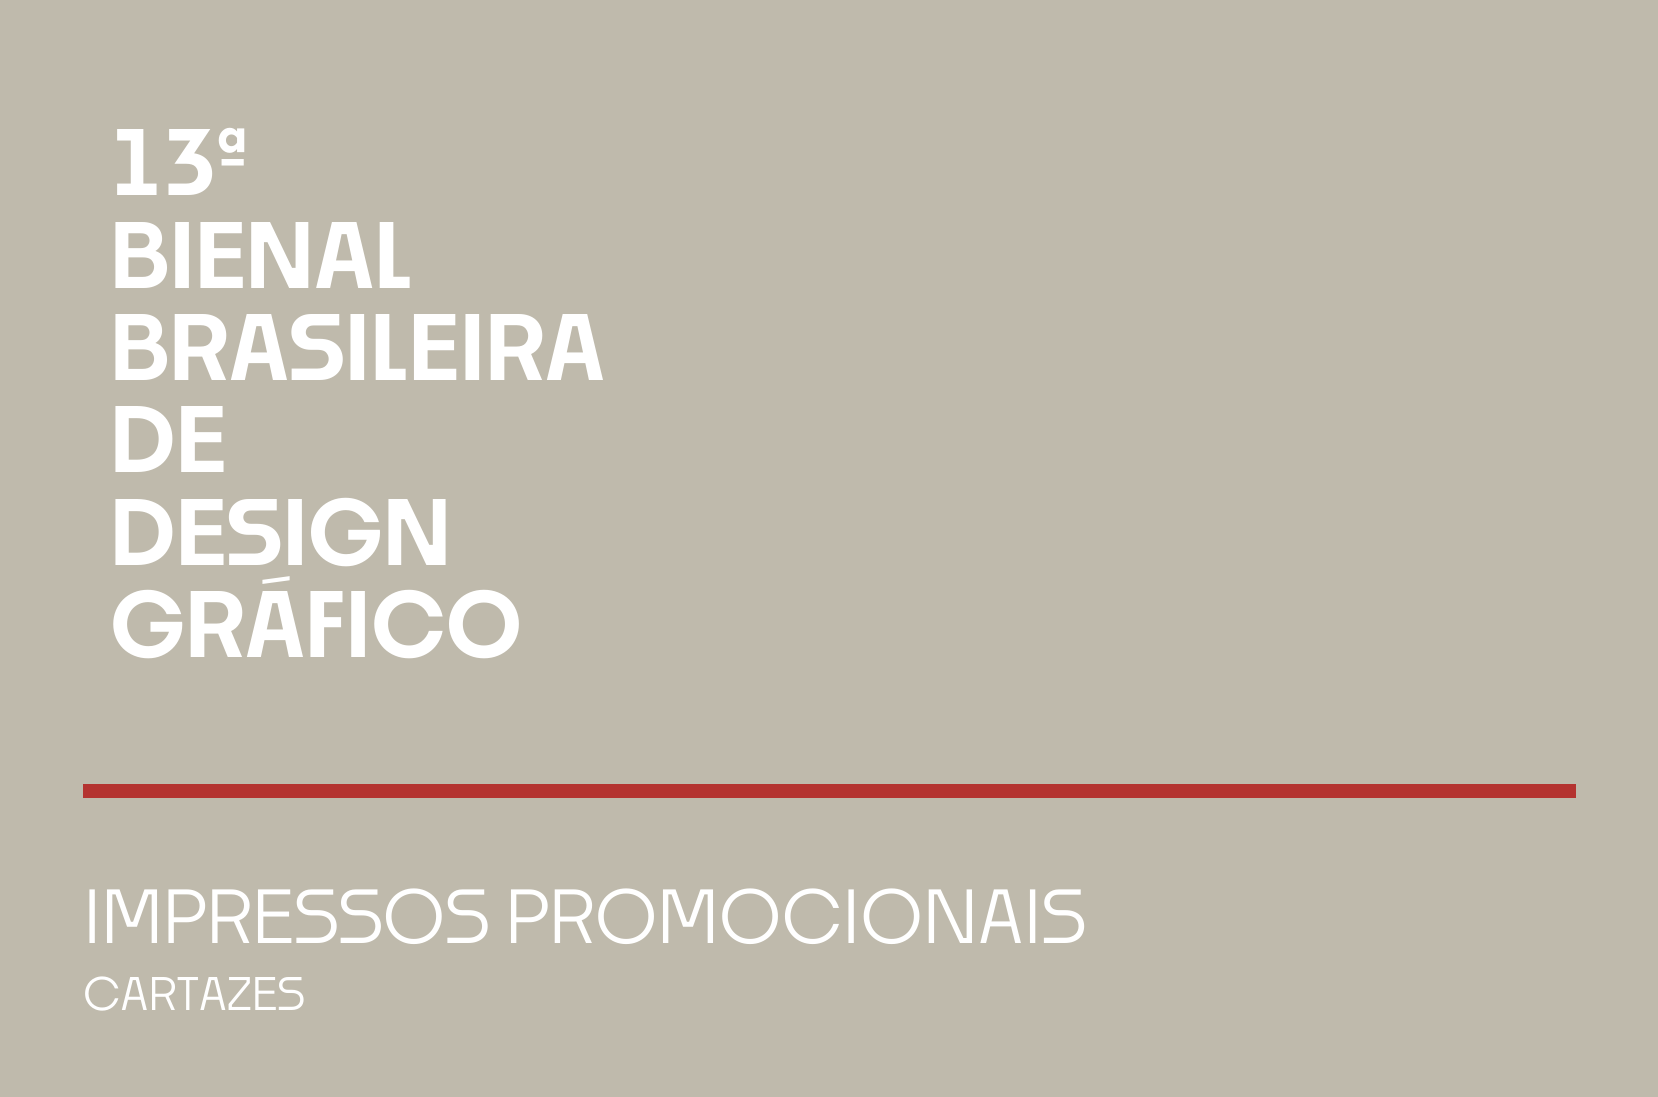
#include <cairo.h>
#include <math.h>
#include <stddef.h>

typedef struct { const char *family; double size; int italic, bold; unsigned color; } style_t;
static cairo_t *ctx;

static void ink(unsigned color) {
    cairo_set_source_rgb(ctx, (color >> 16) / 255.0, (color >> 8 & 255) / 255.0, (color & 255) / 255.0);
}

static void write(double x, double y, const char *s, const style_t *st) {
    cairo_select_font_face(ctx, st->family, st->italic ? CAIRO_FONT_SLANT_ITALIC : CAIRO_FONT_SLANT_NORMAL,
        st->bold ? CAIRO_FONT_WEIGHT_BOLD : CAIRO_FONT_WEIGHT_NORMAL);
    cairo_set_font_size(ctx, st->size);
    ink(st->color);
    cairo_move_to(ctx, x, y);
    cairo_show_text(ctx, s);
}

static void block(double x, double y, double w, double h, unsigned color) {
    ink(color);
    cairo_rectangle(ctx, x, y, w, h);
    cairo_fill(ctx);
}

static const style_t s1 = {"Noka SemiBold", 88, 0, 0, 0xffffff};
static const style_t s2 = {"Noka Medium", 71.5, 0, 0, 0xffffff};
static const style_t s3 = {"Noka Medium", 44, 0, 0, 0xffffff};

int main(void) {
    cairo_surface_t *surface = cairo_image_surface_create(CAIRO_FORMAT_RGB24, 1658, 1097);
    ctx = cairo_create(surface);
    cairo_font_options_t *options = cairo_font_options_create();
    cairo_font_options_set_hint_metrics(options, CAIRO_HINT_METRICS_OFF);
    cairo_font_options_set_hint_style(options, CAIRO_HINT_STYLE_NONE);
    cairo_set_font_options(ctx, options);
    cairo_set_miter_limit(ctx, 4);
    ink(0xbfbaac);
    cairo_paint(ctx);
    write(110, 195, "13ª", &s1);
    write(110, 288, "BIENAL", &s1);
    write(110, 380, "BRASILEIRA", &s1);
    write(110, 472, "DE", &s1);
    write(110, 565, "DESIGN", &s1);
    write(110, 657, "GRÁFICO", &s1);
    block(83, 784, 1493, 14, 0xb43330);
    write(83, 943, "IMPRESSOS PROMOCIONAIS", &s2);
    write(83, 1010, "CARTAZES", &s3);
    cairo_surface_write_to_png(surface, "screenshot.png");
    cairo_font_options_destroy(options);
    cairo_destroy(ctx);
    cairo_surface_destroy(surface);
    return 0;
}
